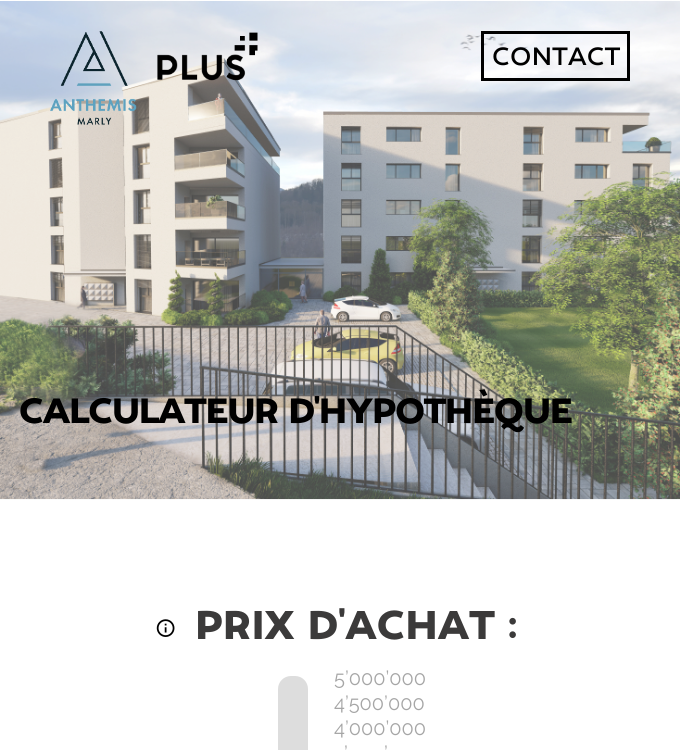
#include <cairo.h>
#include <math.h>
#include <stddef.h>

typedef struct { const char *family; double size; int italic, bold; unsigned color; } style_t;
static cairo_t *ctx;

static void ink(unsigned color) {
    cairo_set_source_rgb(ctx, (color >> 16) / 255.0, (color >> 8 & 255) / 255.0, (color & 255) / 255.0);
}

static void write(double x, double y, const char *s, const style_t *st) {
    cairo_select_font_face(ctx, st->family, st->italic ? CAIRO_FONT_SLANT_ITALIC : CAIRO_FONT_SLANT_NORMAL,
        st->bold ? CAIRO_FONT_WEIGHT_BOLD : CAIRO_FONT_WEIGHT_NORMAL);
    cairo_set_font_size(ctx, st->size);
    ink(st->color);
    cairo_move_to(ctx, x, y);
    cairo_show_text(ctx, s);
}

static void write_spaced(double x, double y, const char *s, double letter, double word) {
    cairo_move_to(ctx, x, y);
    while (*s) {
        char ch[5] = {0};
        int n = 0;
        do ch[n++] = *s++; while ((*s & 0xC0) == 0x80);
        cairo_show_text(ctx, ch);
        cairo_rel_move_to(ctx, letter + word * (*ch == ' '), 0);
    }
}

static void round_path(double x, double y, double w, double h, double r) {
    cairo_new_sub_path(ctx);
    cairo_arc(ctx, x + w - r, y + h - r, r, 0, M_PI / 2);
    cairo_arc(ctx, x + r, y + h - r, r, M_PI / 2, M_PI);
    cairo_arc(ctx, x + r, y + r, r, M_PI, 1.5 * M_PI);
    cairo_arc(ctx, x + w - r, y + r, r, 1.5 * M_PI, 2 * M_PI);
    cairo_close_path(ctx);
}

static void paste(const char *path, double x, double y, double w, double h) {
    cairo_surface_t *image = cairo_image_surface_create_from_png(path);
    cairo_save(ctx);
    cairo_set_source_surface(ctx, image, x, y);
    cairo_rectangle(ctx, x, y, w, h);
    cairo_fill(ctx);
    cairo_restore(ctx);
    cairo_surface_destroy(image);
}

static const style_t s1 = {"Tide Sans", 25, 0, 0, 0x000000};
static const style_t s2 = {"Tide Sans SemiBold", 40, 0, 0, 0x3b3a3a};
static const style_t s3 = {"Raleway", 20, 0, 0, 0xa6a6a6};

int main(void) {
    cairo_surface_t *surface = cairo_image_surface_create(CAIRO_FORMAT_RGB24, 680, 750);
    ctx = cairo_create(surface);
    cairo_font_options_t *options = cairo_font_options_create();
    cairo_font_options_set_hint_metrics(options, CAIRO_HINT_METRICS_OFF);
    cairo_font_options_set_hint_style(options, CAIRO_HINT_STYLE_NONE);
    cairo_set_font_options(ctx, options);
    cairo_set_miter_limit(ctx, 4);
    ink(0xffffff);
    cairo_paint(ctx);
    paste("pic3.png", 0, 0, 680, 500);
    paste("pic1.png", 50, 31, 87, 94);
    paste("pic2.png", 157, 32, 101, 49);
    cairo_rectangle(ctx, 482.5, 32.5, 146, 47);
    ink(0x000000);
    cairo_set_line_width(ctx, 3);
    cairo_stroke(ctx);
    write(492, 65, "CONTACT", &s1);
    cairo_select_font_face(ctx, "Tide Sans SemiBold", CAIRO_FONT_SLANT_NORMAL, CAIRO_FONT_WEIGHT_NORMAL);
    cairo_set_font_size(ctx, 35);
    write_spaced(19, 423, "CALCULATEUR D'HYPOTHÈQUE", -1.25, 0);
    paste("pic4.png", 156, 619, 19, 18);
    write(195, 639, "PRIX D'ACHAT :", &s2);
    ink(0xdddddd);
    round_path(278, 676, 30, 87, 13);
    cairo_fill(ctx);
    write(334, 685, "5’000’000", &s3);
    write(334, 710, "4’500’000", &s3);
    write(334, 735, "4’000’000", &s3);
    write(344, 760, "’", &s3);
    write(384, 760, "’", &s3);
    cairo_surface_write_to_png(surface, "screenshot.png");
    cairo_font_options_destroy(options);
    cairo_destroy(ctx);
    cairo_surface_destroy(surface);
    return 0;
}
